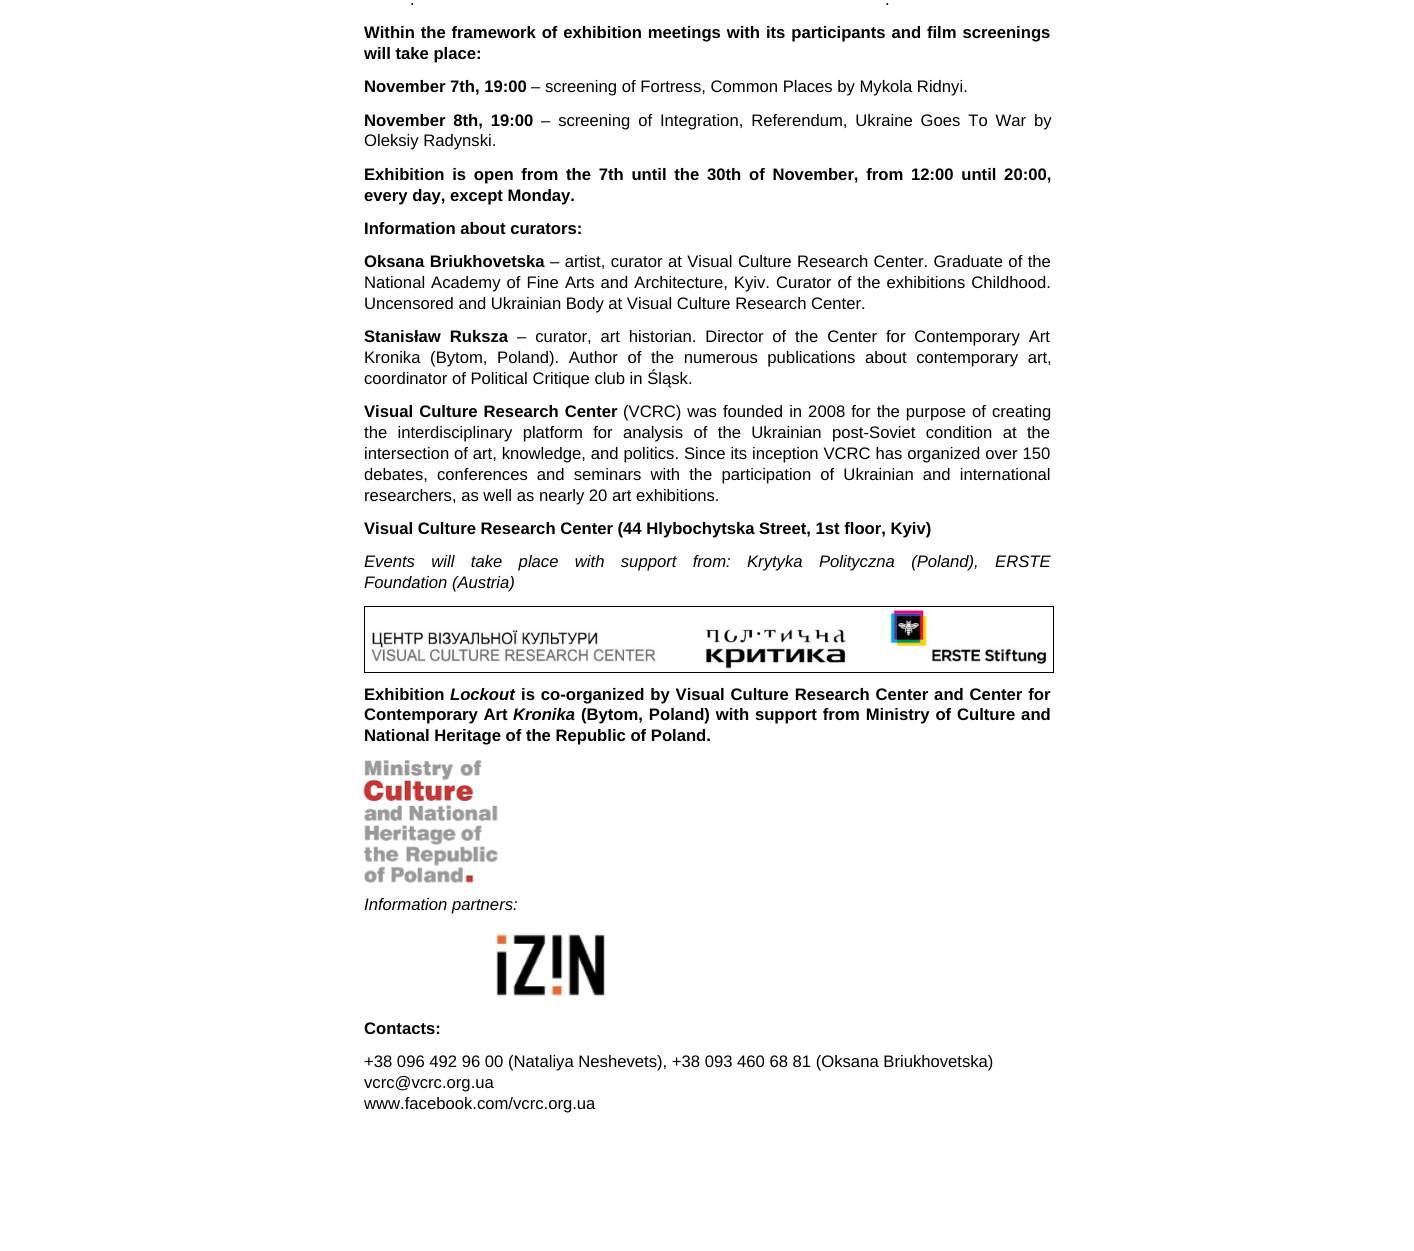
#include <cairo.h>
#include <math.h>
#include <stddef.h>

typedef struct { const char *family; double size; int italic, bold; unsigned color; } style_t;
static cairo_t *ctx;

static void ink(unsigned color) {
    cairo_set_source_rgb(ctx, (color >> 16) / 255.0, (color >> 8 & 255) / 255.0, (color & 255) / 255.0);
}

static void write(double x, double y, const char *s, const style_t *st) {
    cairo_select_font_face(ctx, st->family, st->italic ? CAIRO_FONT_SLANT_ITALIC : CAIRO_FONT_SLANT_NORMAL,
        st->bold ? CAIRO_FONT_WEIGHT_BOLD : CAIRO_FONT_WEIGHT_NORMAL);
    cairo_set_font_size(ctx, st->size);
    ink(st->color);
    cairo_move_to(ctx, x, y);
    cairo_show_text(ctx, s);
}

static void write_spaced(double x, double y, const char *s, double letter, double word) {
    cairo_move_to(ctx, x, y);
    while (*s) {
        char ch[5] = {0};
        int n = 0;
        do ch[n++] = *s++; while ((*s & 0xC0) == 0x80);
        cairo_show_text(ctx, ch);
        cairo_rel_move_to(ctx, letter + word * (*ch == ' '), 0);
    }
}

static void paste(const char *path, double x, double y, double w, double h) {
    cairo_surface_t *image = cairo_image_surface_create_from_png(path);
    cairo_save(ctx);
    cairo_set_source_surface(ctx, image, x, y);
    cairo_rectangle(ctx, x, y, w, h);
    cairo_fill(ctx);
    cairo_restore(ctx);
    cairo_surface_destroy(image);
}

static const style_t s1 = {"Liberation Sans", 16.65, 0, 0, 0x000000};
static const style_t s2 = {"Liberation Sans", 16.65, 0, 1, 0x000000};
static const style_t s3 = {"Liberation Sans", 16.65, 1, 0, 0x000000};
static const style_t s4 = {"Liberation Sans", 16.65, 1, 1, 0x000000};

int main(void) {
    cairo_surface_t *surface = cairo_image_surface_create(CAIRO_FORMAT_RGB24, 1414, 1251);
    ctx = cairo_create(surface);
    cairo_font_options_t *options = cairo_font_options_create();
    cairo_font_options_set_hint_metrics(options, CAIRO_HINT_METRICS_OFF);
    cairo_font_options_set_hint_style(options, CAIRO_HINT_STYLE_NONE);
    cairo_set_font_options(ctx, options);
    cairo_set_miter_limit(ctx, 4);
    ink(0xffffff);
    cairo_paint(ctx);
    write(410, 5, ".", &s1);
    write(885, 5, ".", &s1);
    cairo_select_font_face(ctx, "Liberation Sans", CAIRO_FONT_SLANT_NORMAL, CAIRO_FONT_WEIGHT_BOLD);
    write_spaced(364, 38, "Within the framework of exhibition meetings with its participants and film screenings", 0, 1.25);
    write(364, 59, "will take place:", &s2);
    write(364, 92, "November 7th, 19:00", &s2);
    write(531, 92, "– screening of Fortress, Common Places by Mykola Ridnyi.", &s1);
    cairo_select_font_face(ctx, "Liberation Sans", CAIRO_FONT_SLANT_NORMAL, CAIRO_FONT_WEIGHT_BOLD);
    write_spaced(364, 126, "November 8th, 19:00", 0, 3.25);
    cairo_select_font_face(ctx, "Liberation Sans", CAIRO_FONT_SLANT_NORMAL, CAIRO_FONT_WEIGHT_NORMAL);
    write_spaced(541, 126, "– screening of Integration, Referendum, Ukraine Goes To War by", 0, 3.25);
    write(364, 146, "Oleksiy Radynski.", &s1);
    cairo_select_font_face(ctx, "Liberation Sans", CAIRO_FONT_SLANT_NORMAL, CAIRO_FONT_WEIGHT_BOLD);
    write_spaced(364, 180, "Exhibition is open from the 7th until the 30th of November, from 12:00 until 20:00,", 0, 3.1);
    write(364, 201, "every day, except Monday.", &s2);
    write(364, 234, "Information about curators:", &s2);
    write_spaced(364, 267, "Oksana Briukhovetska", 0, 1);
    cairo_select_font_face(ctx, "Liberation Sans", CAIRO_FONT_SLANT_NORMAL, CAIRO_FONT_WEIGHT_NORMAL);
    write_spaced(550, 267, "– artist, curator at Visual Culture Research Center. Graduate of the", 0, 0.75);
    write_spaced(364, 288, "National Academy of Fine Arts and Architecture, Kyiv. Curator of the exhibitions Childhood.", 0, 1.4);
    write(364, 309, "Uncensored and Ukrainian Body at Visual Culture Research Center.", &s1);
    cairo_select_font_face(ctx, "Liberation Sans", CAIRO_FONT_SLANT_NORMAL, CAIRO_FONT_WEIGHT_BOLD);
    write_spaced(364, 342, "Stanisław Ruksza", 0, 4.25);
    cairo_select_font_face(ctx, "Liberation Sans", CAIRO_FONT_SLANT_NORMAL, CAIRO_FONT_WEIGHT_NORMAL);
    write_spaced(517, 342, "– curator, art historian. Director of the Center for Contemporary Art", 0, 4.25);
    write_spaced(364, 363, "Kronika (Bytom, Poland). Author of the numerous publications about contemporary art,", 0, 5);
    write(364, 384, "coordinator of Political Critique club in Śląsk.", &s1);
    cairo_select_font_face(ctx, "Liberation Sans", CAIRO_FONT_SLANT_NORMAL, CAIRO_FONT_WEIGHT_BOLD);
    write_spaced(364, 417, "Visual Culture Research Center", 0, 1.5);
    cairo_select_font_face(ctx, "Liberation Sans", CAIRO_FONT_SLANT_NORMAL, CAIRO_FONT_WEIGHT_NORMAL);
    write_spaced(623, 417, "(VCRC) was founded in 2008 for the purpose of creating", 0, 1.4);
    write_spaced(364, 438, "the interdisciplinary platform for analysis of the Ukrainian post-Soviet condition at the", 0, 5.75);
    write_spaced(364, 459, "intersection of art, knowledge, and politics. Since its inception VCRC has organized over 150", 0, 0.25);
    write_spaced(364, 480, "debates, conferences and seminars with the participation of Ukrainian and international", 0, 4.5);
    write(364, 501, "researchers, as well as nearly 20 art exhibitions.", &s1);
    write(364, 534, "Visual Culture Research Center (44 Hlybochytska Street, 1st floor, Kyiv)", &s2);
    cairo_select_font_face(ctx, "Liberation Sans", CAIRO_FONT_SLANT_ITALIC, CAIRO_FONT_WEIGHT_NORMAL);
    write_spaced(364, 567, "Events will take place with support from: Krytyka Polityczna (Poland), ERSTE", 0, 11.75);
    write(364, 588, "Foundation (Austria)", &s3);
    cairo_rectangle(ctx, 364.5, 606.5, 689, 66);
    cairo_set_line_width(ctx, 1);
    cairo_stroke(ctx);
    paste("pic1.png", 371, 607, 676, 62);
    write(364, 700, "Exhibition", &s2);
    write(450, 700, "Lockout", &s4);
    cairo_select_font_face(ctx, "Liberation Sans", CAIRO_FONT_SLANT_NORMAL, CAIRO_FONT_WEIGHT_BOLD);
    write_spaced(521, 700, "is co-organized by Visual Culture Research Center and Center for", 0, 1.25);
    write_spaced(364, 720, "Contemporary Art", 0, 1);
    write(513, 720, "Kronika", &s4);
    cairo_select_font_face(ctx, "Liberation Sans", CAIRO_FONT_SLANT_NORMAL, CAIRO_FONT_WEIGHT_BOLD);
    write_spaced(581, 720, "(Bytom, Poland) with support from Ministry of Culture and", 0, 1.25);
    write(364, 741, "National Heritage of the Republic of Poland.", &s2);
    paste("pic2.png", 363, 760, 135, 123);
    write(364, 910, "Information partners:", &s3);
    paste("pic3.png", 495, 932, 111, 66);
    write(364, 1034, "Contacts:", &s2);
    write(364, 1067, "+38 096 492 96 00 (Nataliya Neshevets), +38 093 460 68 81 (Oksana Briukhovetska)", &s1);
    write(364, 1088, "vcrc@vcrc.org.ua", &s1);
    write(364, 1109, "www.facebook.com/vcrc.org.ua", &s1);
    cairo_surface_write_to_png(surface, "screenshot.png");
    cairo_font_options_destroy(options);
    cairo_destroy(ctx);
    cairo_surface_destroy(surface);
    return 0;
}
